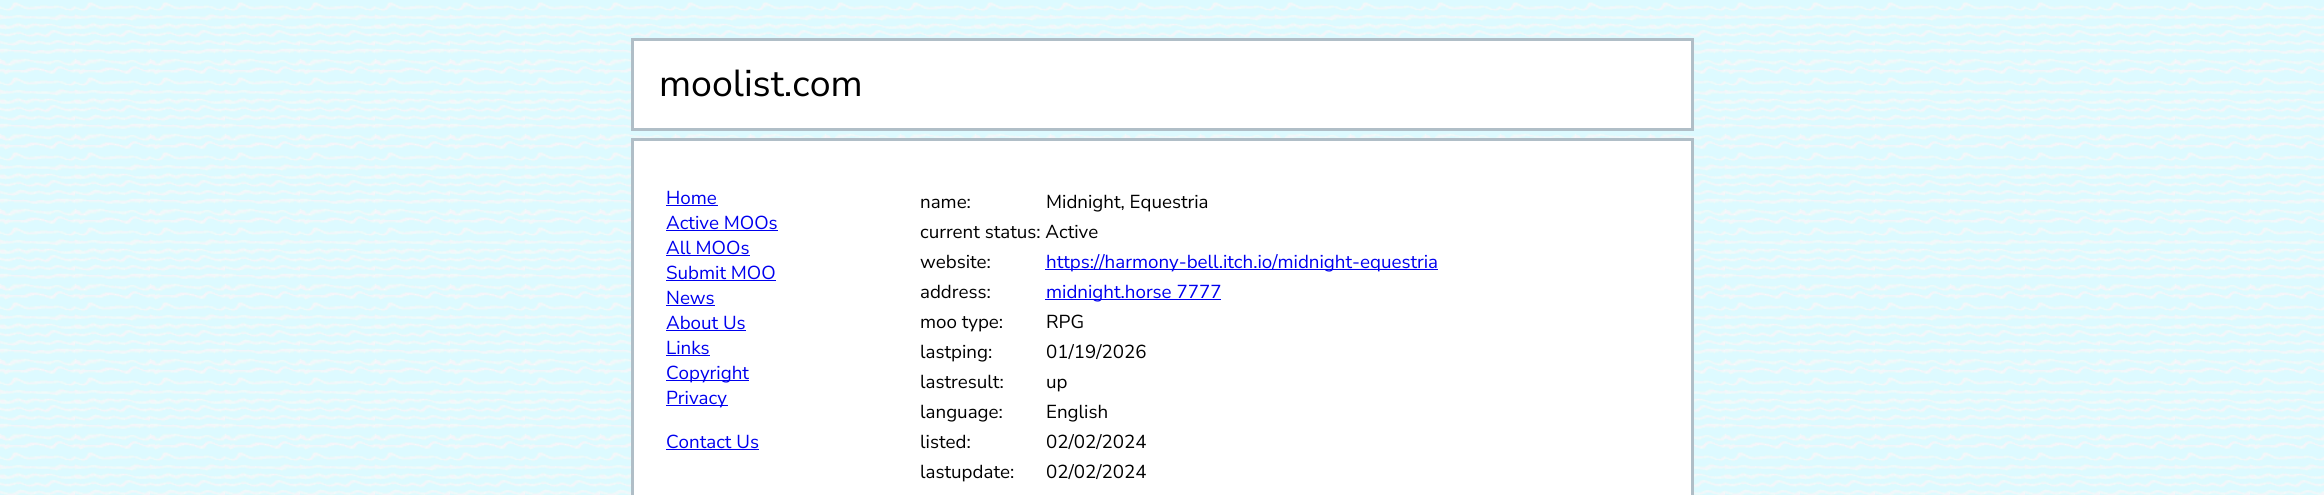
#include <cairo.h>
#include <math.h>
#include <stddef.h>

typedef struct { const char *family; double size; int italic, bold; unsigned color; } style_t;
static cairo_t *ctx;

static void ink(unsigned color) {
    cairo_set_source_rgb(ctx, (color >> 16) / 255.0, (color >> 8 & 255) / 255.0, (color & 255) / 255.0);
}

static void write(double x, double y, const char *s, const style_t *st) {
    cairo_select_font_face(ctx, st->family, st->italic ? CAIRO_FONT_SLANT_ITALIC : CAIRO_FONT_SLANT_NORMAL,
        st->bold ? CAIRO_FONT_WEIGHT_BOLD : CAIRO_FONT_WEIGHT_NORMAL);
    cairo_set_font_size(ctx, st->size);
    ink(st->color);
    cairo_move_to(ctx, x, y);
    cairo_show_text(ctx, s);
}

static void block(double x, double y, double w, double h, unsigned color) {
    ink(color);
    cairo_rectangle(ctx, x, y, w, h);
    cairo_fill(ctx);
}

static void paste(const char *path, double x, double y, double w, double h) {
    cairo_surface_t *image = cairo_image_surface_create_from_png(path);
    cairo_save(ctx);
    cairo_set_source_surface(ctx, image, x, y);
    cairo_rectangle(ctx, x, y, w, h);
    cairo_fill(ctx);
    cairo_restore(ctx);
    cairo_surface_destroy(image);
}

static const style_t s1 = {"Nunito Sans ExtraLight", 37.5, 0, 0, 0x000000};
static const style_t s2 = {"Nunito Sans ExtraLight", 18.75, 0, 0, 0x0000ee};
static const style_t s3 = {"Nunito Sans ExtraLight", 18.75, 0, 0, 0x000000};

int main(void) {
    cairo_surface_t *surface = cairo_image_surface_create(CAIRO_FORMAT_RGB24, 2324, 495);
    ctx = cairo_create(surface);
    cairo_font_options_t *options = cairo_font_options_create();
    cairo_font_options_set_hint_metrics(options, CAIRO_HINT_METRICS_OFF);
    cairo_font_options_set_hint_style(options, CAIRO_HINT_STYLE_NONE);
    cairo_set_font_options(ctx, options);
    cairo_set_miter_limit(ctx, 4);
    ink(0xffffff);
    cairo_paint(ctx);
    paste("pic1.png", 0, 0, 2324, 495);
    ink(0xffffff);
    cairo_rectangle(ctx, 632.5, 39.5, 1060, 90);
    cairo_fill_preserve(ctx);
    ink(0xb0bec7);
    cairo_set_line_width(ctx, 3);
    cairo_stroke(ctx);
    write(659, 96, "moolist.com", &s1);
    ink(0xffffff);
    cairo_rectangle(ctx, 632.5, 139.5, 1060, 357);
    cairo_fill_preserve(ctx);
    ink(0xb0bec7);
    cairo_stroke(ctx);
    write(666, 204, "Home", &s2);
    block(666, 205, 52, 1, 0x0000ee);
    write(666, 229, "Active MOOs", &s2);
    block(666, 230, 112, 1, 0x0000ee);
    write(666, 254, "All MOOs", &s2);
    block(666, 255, 84, 1, 0x0000ee);
    write(666, 279, "Submit MOO", &s2);
    block(666, 280, 110, 1, 0x0000ee);
    write(666, 304, "News", &s2);
    block(666, 305, 49, 1, 0x0000ee);
    write(666, 329, "About Us", &s2);
    block(666, 330, 80, 1, 0x0000ee);
    write(666, 354, "Links", &s2);
    block(666, 355, 44, 1, 0x0000ee);
    block(666, 380, 83, 1, 0x0000ee);
    write(666, 379, "Copyright", &s2);
    block(666, 405, 62, 1, 0x0000ee);
    write(666, 404, "Privacy", &s2);
    write(666, 448, "Contact Us", &s2);
    block(666, 449, 93, 1, 0x0000ee);
    write(920, 208, "name:", &s3);
    write(1046, 208, "Midnight, Equestria", &s3);
    write(920, 238, "current status: Active", &s3);
    write(920, 268, "website:", &s3);
    block(1045, 269, 393, 1, 0x0000ee);
    write(1046, 268, "https://harmony-bell.itch.io/midnight-equestria", &s2);
    write(920, 298, "address:", &s3);
    block(1045, 299, 176, 1, 0x0000ee);
    write(1046, 298, "midnight.horse 7777", &s2);
    write(920, 328, "moo type:", &s3);
    write(1046, 328, "RPG", &s3);
    write(920, 358, "lastping:", &s3);
    write(1046, 358, "01/19/2026", &s3);
    write(920, 388, "lastresult:", &s3);
    write(1046, 388, "up", &s3);
    write(920, 418, "language:", &s3);
    write(1046, 418, "English", &s3);
    write(920, 448, "listed:", &s3);
    write(1046, 448, "02/02/2024", &s3);
    write(920, 478, "lastupdate:", &s3);
    write(1046, 478, "02/02/2024", &s3);
    cairo_surface_write_to_png(surface, "screenshot.png");
    cairo_font_options_destroy(options);
    cairo_destroy(ctx);
    cairo_surface_destroy(surface);
    return 0;
}
